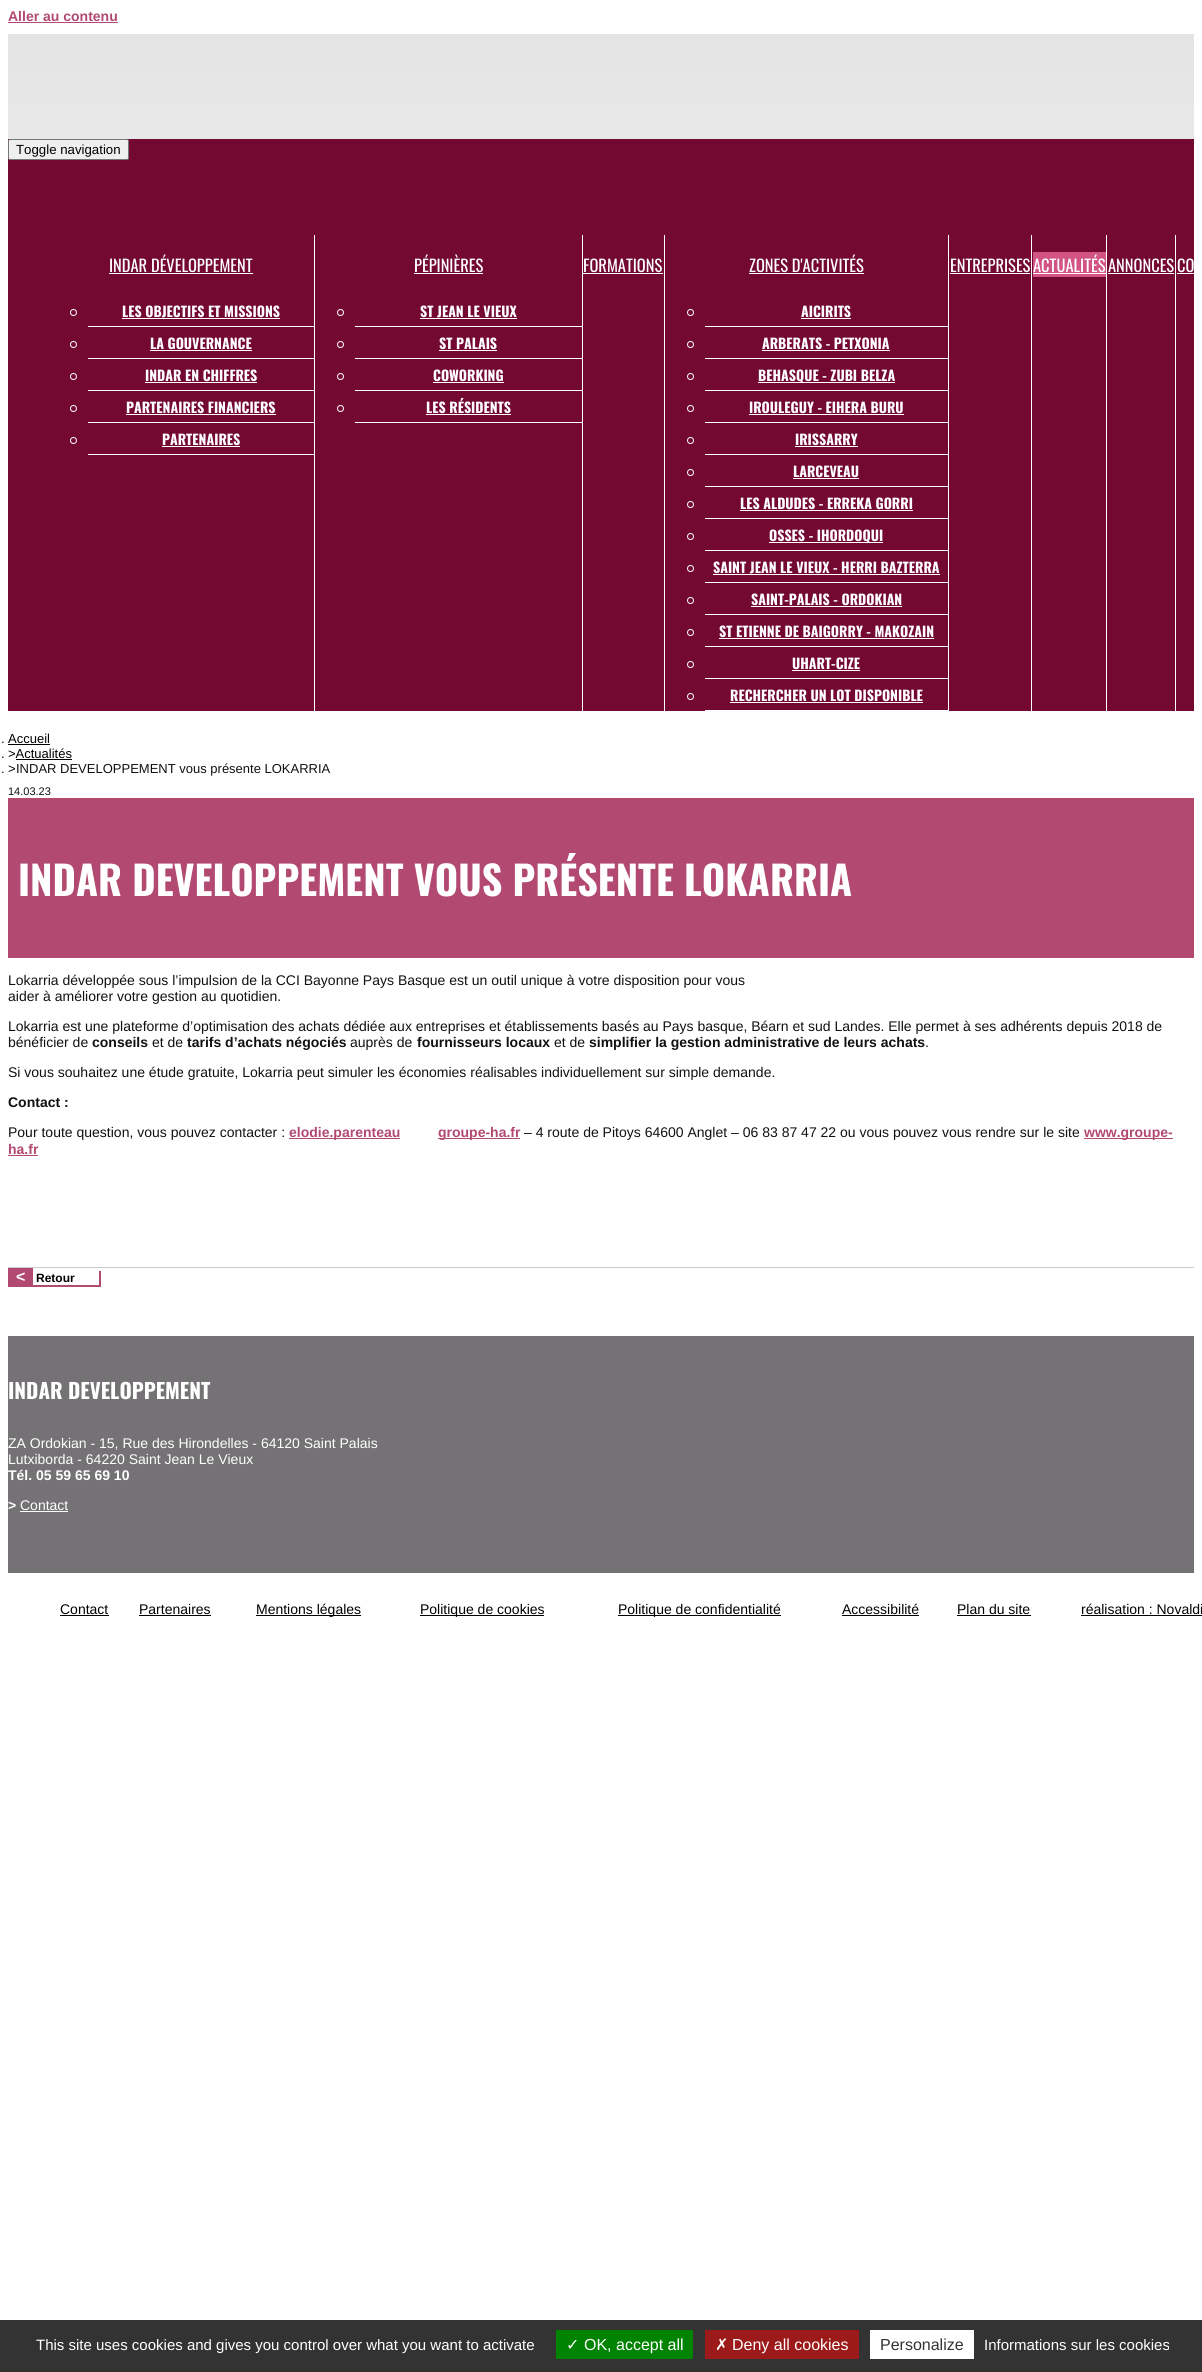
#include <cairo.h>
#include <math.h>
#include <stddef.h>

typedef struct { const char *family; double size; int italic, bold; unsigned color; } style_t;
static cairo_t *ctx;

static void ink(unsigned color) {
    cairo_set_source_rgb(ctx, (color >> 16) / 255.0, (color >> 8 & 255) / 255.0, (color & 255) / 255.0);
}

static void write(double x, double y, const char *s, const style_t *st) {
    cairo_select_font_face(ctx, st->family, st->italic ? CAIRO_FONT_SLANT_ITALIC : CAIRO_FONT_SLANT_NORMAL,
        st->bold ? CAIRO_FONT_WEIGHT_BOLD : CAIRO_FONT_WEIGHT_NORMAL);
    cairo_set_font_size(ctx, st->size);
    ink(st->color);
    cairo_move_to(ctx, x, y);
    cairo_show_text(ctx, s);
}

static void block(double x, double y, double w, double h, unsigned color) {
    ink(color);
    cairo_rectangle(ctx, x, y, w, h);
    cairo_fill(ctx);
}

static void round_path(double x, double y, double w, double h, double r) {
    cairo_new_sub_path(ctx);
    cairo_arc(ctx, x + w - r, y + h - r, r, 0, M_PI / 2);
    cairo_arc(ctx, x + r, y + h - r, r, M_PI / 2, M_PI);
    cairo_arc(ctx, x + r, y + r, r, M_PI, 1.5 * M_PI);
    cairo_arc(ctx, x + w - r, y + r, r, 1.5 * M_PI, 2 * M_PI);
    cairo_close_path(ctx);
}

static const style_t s1 = {"Liberation Sans", 14, 0, 1, 0xb24971};
static const style_t s2 = {"Liberation Sans", 13.25, 0, 0, 0x000000};
static const style_t s3 = {"Oswald", 16.5, 0, 0, 0xffffff};
static const style_t s4 = {"Oswald", 14, 0, 1, 0xffffff};
static const style_t s5 = {"Liberation Sans", 13, 0, 0, 0x111111};
static const style_t s6 = {"Liberation Sans", 13, 0, 0, 0x000000};
static const style_t s7 = {"Liberation Sans", 11, 0, 0, 0x111111};
static const style_t s8 = {"Oswald", 40, 0, 1, 0xffffff};
static const style_t s9 = {"Liberation Sans", 14, 0, 0, 0x111111};
static const style_t s10 = {"Liberation Sans", 14, 0, 1, 0x111111};
static const style_t s11 = {"Liberation Sans", 16, 0, 1, 0xffffff};
static const style_t s12 = {"Liberation Sans", 12, 0, 1, 0x000000};
static const style_t s13 = {"Oswald", 21, 0, 1, 0xffffff};
static const style_t s14 = {"Liberation Sans", 14, 0, 0, 0xffffff};
static const style_t s15 = {"Liberation Sans", 14, 0, 1, 0xffffff};
static const style_t s16 = {"Liberation Sans", 14, 0, 0, 0x000000};
static const style_t s17 = {"Liberation Sans", 15, 0, 0, 0xffffff};
static const style_t s18 = {"DejaVu Sans", 16, 0, 0, 0xffffff};
static const style_t s19 = {"Liberation Sans", 16, 0, 0, 0xffffff};
static const style_t s20 = {"Liberation Sans", 16, 0, 0, 0x333333};

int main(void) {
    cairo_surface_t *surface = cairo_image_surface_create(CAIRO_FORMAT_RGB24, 1202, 2372);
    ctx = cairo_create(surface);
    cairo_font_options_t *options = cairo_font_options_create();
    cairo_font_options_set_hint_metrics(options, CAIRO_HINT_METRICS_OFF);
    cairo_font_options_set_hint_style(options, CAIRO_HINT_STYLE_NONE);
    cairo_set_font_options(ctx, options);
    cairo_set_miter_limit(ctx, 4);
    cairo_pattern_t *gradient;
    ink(0xffffff);
    cairo_paint(ctx);
    write(8, 21, "Aller au contenu", &s1);
    block(8, 22, 110, 1, 0xb24971);
    gradient = cairo_pattern_create_linear(601, 34, 601, 782);
    cairo_pattern_add_color_stop_rgba(gradient, 0, 0.894, 0.894, 0.894, 1);
    cairo_pattern_add_color_stop_rgba(gradient, 1, 1, 1, 1, 1);
    cairo_set_source(ctx, gradient);
    cairo_pattern_destroy(gradient);
    cairo_rectangle(ctx, 8, 34, 1186, 679);
    cairo_fill(ctx);
    block(8, 139, 1186, 572, 0x730931);
    ink(0xefefef);
    round_path(8.5, 139.5, 120, 20, 1.5);
    cairo_fill_preserve(ctx);
    ink(0x767676);
    cairo_set_line_width(ctx, 1);
    cairo_stroke(ctx);
    write(16, 154, "Toggle navigation", &s2);
    block(314, 235, 1, 476, 0xffffff);
    write(109, 272, "INDAR DÉVELOPPEMENT", &s3);
    block(109, 273, 144, 1, 0xffffff);
    block(88, 326, 226, 1, 0xffffff);
    cairo_new_path(ctx);
    cairo_arc(ctx, 73.5, 312.5, 3, 0, 2 * M_PI);
    cairo_stroke(ctx);
    write(122, 317, "LES OBJECTIFS ET MISSIONS", &s4);
    block(122, 318, 158, 1, 0xffffff);
    block(88, 358, 226, 1, 0xffffff);
    cairo_new_path(ctx);
    cairo_arc(ctx, 73.5, 344.5, 3, 0, 2 * M_PI);
    cairo_stroke(ctx);
    write(150, 349, "LA GOUVERNANCE", &s4);
    block(150, 350, 102, 1, 0xffffff);
    block(88, 390, 226, 1, 0xffffff);
    cairo_new_path(ctx);
    cairo_arc(ctx, 73.5, 376.5, 3, 0, 2 * M_PI);
    cairo_stroke(ctx);
    write(145, 381, "INDAR EN CHIFFRES", &s4);
    block(145, 382, 112, 1, 0xffffff);
    block(88, 422, 226, 1, 0xffffff);
    cairo_new_path(ctx);
    cairo_arc(ctx, 73.5, 408.5, 3, 0, 2 * M_PI);
    cairo_stroke(ctx);
    write(126, 413, "PARTENAIRES FINANCIERS", &s4);
    block(126, 414, 150, 1, 0xffffff);
    block(88, 454, 226, 1, 0xffffff);
    cairo_new_path(ctx);
    cairo_arc(ctx, 73.5, 440.5, 3, 0, 2 * M_PI);
    cairo_stroke(ctx);
    write(162, 445, "PARTENAIRES", &s4);
    block(162, 446, 78, 1, 0xffffff);
    block(582, 235, 1, 476, 0xffffff);
    write(414, 272, "PÉPINIÈRES", &s3);
    block(414, 273, 69, 1, 0xffffff);
    block(355, 326, 227, 1, 0xffffff);
    cairo_new_path(ctx);
    cairo_arc(ctx, 340.5, 312.5, 3, 0, 2 * M_PI);
    cairo_stroke(ctx);
    write(420, 317, "ST JEAN LE VIEUX", &s4);
    block(420, 318, 97, 1, 0xffffff);
    block(355, 358, 227, 1, 0xffffff);
    cairo_new_path(ctx);
    cairo_arc(ctx, 340.5, 344.5, 3, 0, 2 * M_PI);
    cairo_stroke(ctx);
    write(439, 349, "ST PALAIS", &s4);
    block(439, 350, 58, 1, 0xffffff);
    block(355, 390, 227, 1, 0xffffff);
    cairo_new_path(ctx);
    cairo_arc(ctx, 340.5, 376.5, 3, 0, 2 * M_PI);
    cairo_stroke(ctx);
    write(433, 381, "COWORKING", &s4);
    block(433, 382, 71, 1, 0xffffff);
    block(355, 422, 227, 1, 0xffffff);
    cairo_new_path(ctx);
    cairo_arc(ctx, 340.5, 408.5, 3, 0, 2 * M_PI);
    cairo_stroke(ctx);
    write(426, 413, "LES RÉSIDENTS", &s4);
    block(426, 414, 85, 1, 0xffffff);
    block(664, 235, 1, 476, 0xffffff);
    write(583, 272, "FORMATIONS", &s3);
    block(583, 273, 80, 1, 0xffffff);
    block(948, 235, 1, 476, 0xffffff);
    write(749, 272, "ZONES D'ACTIVITÉS", &s3);
    block(749, 273, 115, 1, 0xffffff);
    block(705, 326, 243, 1, 0xffffff);
    cairo_new_path(ctx);
    cairo_arc(ctx, 690.5, 312.5, 3, 0, 2 * M_PI);
    cairo_stroke(ctx);
    write(801, 317, "AICIRITS", &s4);
    block(801, 318, 50, 1, 0xffffff);
    block(705, 358, 243, 1, 0xffffff);
    cairo_new_path(ctx);
    cairo_arc(ctx, 690.5, 344.5, 3, 0, 2 * M_PI);
    cairo_stroke(ctx);
    write(762, 349, "ARBERATS - PETXONIA", &s4);
    block(762, 350, 128, 1, 0xffffff);
    block(705, 390, 243, 1, 0xffffff);
    cairo_new_path(ctx);
    cairo_arc(ctx, 690.5, 376.5, 3, 0, 2 * M_PI);
    cairo_stroke(ctx);
    block(758, 382, 137, 1, 0xffffff);
    write(758, 381, "BEHASQUE - ZUBI BELZA", &s4);
    block(705, 422, 243, 1, 0xffffff);
    cairo_new_path(ctx);
    cairo_arc(ctx, 690.5, 408.5, 3, 0, 2 * M_PI);
    cairo_stroke(ctx);
    write(749, 413, "IROULEGUY - EIHERA BURU", &s4);
    block(749, 414, 155, 1, 0xffffff);
    block(705, 454, 243, 1, 0xffffff);
    cairo_new_path(ctx);
    cairo_arc(ctx, 690.5, 440.5, 3, 0, 2 * M_PI);
    cairo_stroke(ctx);
    write(795, 445, "IRISSARRY", &s4);
    block(795, 446, 63, 1, 0xffffff);
    block(705, 486, 243, 1, 0xffffff);
    cairo_new_path(ctx);
    cairo_arc(ctx, 690.5, 472.5, 3, 0, 2 * M_PI);
    cairo_stroke(ctx);
    write(793, 477, "LARCEVEAU", &s4);
    block(793, 478, 66, 1, 0xffffff);
    block(705, 518, 243, 1, 0xffffff);
    cairo_new_path(ctx);
    cairo_arc(ctx, 690.5, 504.5, 3, 0, 2 * M_PI);
    cairo_stroke(ctx);
    write(740, 509, "LES ALDUDES - ERREKA GORRI", &s4);
    block(740, 510, 173, 1, 0xffffff);
    block(705, 550, 243, 1, 0xffffff);
    cairo_new_path(ctx);
    cairo_arc(ctx, 690.5, 536.5, 3, 0, 2 * M_PI);
    cairo_stroke(ctx);
    block(769, 542, 114, 1, 0xffffff);
    write(769, 541, "OSSES - IHORDOQUI", &s4);
    block(705, 582, 243, 1, 0xffffff);
    cairo_new_path(ctx);
    cairo_arc(ctx, 690.5, 568.5, 3, 0, 2 * M_PI);
    cairo_stroke(ctx);
    write(713, 573, "SAINT JEAN LE VIEUX - HERRI BAZTERRA", &s4);
    block(713, 574, 227, 1, 0xffffff);
    block(705, 614, 243, 1, 0xffffff);
    cairo_new_path(ctx);
    cairo_arc(ctx, 690.5, 600.5, 3, 0, 2 * M_PI);
    cairo_stroke(ctx);
    write(751, 605, "SAINT-PALAIS - ORDOKIAN", &s4);
    block(751, 606, 151, 1, 0xffffff);
    block(705, 646, 243, 1, 0xffffff);
    cairo_new_path(ctx);
    cairo_arc(ctx, 690.5, 632.5, 3, 0, 2 * M_PI);
    cairo_stroke(ctx);
    write(719, 637, "ST ETIENNE DE BAIGORRY - MAKOZAIN", &s4);
    block(719, 638, 215, 1, 0xffffff);
    block(705, 678, 243, 1, 0xffffff);
    cairo_new_path(ctx);
    cairo_arc(ctx, 690.5, 664.5, 3, 0, 2 * M_PI);
    cairo_stroke(ctx);
    write(792, 669, "UHART-CIZE", &s4);
    block(792, 670, 68, 1, 0xffffff);
    block(705, 710, 243, 1, 0xffffff);
    cairo_new_path(ctx);
    cairo_arc(ctx, 690.5, 696.5, 3, 0, 2 * M_PI);
    cairo_stroke(ctx);
    write(730, 701, "RECHERCHER UN LOT DISPONIBLE", &s4);
    block(730, 702, 193, 1, 0xffffff);
    block(1031, 235, 1, 476, 0xffffff);
    write(950, 272, "ENTREPRISES", &s3);
    block(950, 273, 80, 1, 0xffffff);
    block(1106, 235, 1, 476, 0xffffff);
    block(1033, 252, 73, 25, 0xd15483);
    write(1033, 272, "ACTUALITÉS", &s3);
    block(1033, 273, 73, 1, 0xffffff);
    block(1175, 235, 1, 476, 0xffffff);
    write(1108, 272, "ANNONCES", &s3);
    block(1108, 273, 66, 1, 0xffffff);
    write(1177, 272, "CO", &s3);
    block(1177, 273, 25, 1, 0xffffff);
    write(1, 743, ".", &s5);
    write(8, 743, "Accueil", &s6);
    block(8, 744, 42, 1, 0x000000);
    write(1, 758, ".", &s5);
    write(8, 758, ">Actualités", &s6);
    block(16, 759, 56, 1, 0x000000);
    write(1, 773, ".", &s5);
    write(8, 773, ">", &s6);
    write(16, 773, "INDAR DEVELOPPEMENT vous présente LOKARRIA", &s5);
    write(8, 795, "14.03.23", &s7);
    block(8, 798, 1186, 160, 0xb24971);
    write(18, 896, "INDAR DEVELOPPEMENT VOUS PRÉSENTE LOKARRIA", &s8);
    write(8, 985, "Lokarria développée sous l’impulsion de la CCI Bayonne Pays Basque est un outil unique à votre disposition pour vous", &s9);
    write(8, 1001, "aider à améliorer votre gestion au quotidien.", &s9);
    write(8, 1031, "Lokarria est une plateforme d’optimisation des achats dédiée aux entreprises et établissements basés au Pays basque, Béarn et sud Landes. Elle permet à ses adhérents depuis 2018 de", &s9);
    write(8, 1047, "bénéficier de", &s9);
    write(92, 1047, "conseils", &s10);
    write(152, 1047, "et de", &s9);
    write(187, 1047, "tarifs d’achats négociés", &s10);
    write(350, 1047, "auprès de", &s9);
    write(417, 1047, "fournisseurs locaux", &s10);
    write(554, 1047, "et de", &s9);
    write(589, 1047, "simplifier la gestion administrative de leurs achats", &s10);
    write(925, 1047, ".", &s9);
    write(8, 1077, "Si vous souhaitez une étude gratuite, Lokarria peut simuler les économies réalisables individuellement sur simple demande.", &s9);
    write(8, 1107, "Contact :", &s10);
    write(8, 1137, "Pour toute question, vous pouvez contacter :", &s9);
    block(289, 1138, 111, 1, 0xb24971);
    write(289, 1137, "elodie.parenteau", &s1);
    block(438, 1138, 82, 1, 0xb24971);
    write(438, 1137, "groupe-ha.fr", &s1);
    write(524, 1137, "– 4 route de Pitoys 64600 Anglet – 06 83 87 47 22 ou vous pouvez vous rendre sur le site", &s9);
    block(1084, 1138, 89, 1, 0xb24971);
    write(1084, 1137, "www.groupe-", &s1);
    write(8, 1154, "ha.fr", &s1);
    block(8, 1155, 30, 1, 0xb24971);
    block(8, 1267, 1186, 1, 0xcccccc);
    block(8, 1268, 25, 19, 0xb24971);
    write(16, 1282, "<", &s11);
    write(36, 1282, "Retour", &s12);
    block(99, 1271, 2, 16, 0xb24971);
    block(33, 1285, 68, 2, 0xb24971);
    block(8, 1336, 1186, 237, 0x747274);
    write(8, 1399, "INDAR DEVELOPPEMENT", &s13);
    write(8, 1448, "ZA Ordokian - 15, Rue des Hirondelles - 64120 Saint Palais", &s14);
    write(8, 1464, "Lutxiborda - 64220 Saint Jean Le Vieux", &s14);
    write(8, 1480, "Tél. 05 59 65 69 10", &s15);
    write(8, 1510, ">", &s15);
    write(20, 1510, "Contact", &s14);
    block(20, 1511, 48, 1, 0xffffff);
    write(60, 1614, "Contact", &s16);
    block(60, 1615, 49, 1, 0x000000);
    write(139, 1614, "Partenaires", &s16);
    block(139, 1615, 72, 1, 0x000000);
    block(256, 1615, 105, 1, 0x000000);
    write(256, 1614, "Mentions légales", &s16);
    block(420, 1615, 124, 1, 0x000000);
    write(420, 1614, "Politique de cookies", &s16);
    block(618, 1615, 163, 1, 0x000000);
    write(618, 1614, "Politique de confidentialité", &s16);
    write(842, 1614, "Accessibilité", &s16);
    block(842, 1615, 77, 1, 0x000000);
    write(957, 1614, "Plan du site", &s16);
    block(957, 1615, 74, 1, 0x000000);
    write(1081, 1614, "réalisation : Novaldi", &s16);
    block(1081, 1615, 121, 1, 0x000000);
    block(0, 2320, 1202, 52, 0x333333);
    write(36, 2350, "This site uses cookies and gives you control over what you want to activate", &s17);
    block(556, 2330, 137, 29, 0x008300);
    write(566, 2350, "✓", &s18);
    write(584, 2350, "OK, accept all", &s19);
    block(705, 2330, 154, 29, 0x9c1a1a);
    write(715, 2350, "✗", &s18);
    write(732, 2350, "Deny all cookies", &s19);
    block(870, 2330, 104, 29, 0xffffff);
    write(880, 2350, "Personalize", &s20);
    write(984, 2350, "Informations sur les cookies", &s17);
    cairo_surface_write_to_png(surface, "screenshot.png");
    cairo_font_options_destroy(options);
    cairo_destroy(ctx);
    cairo_surface_destroy(surface);
    return 0;
}
